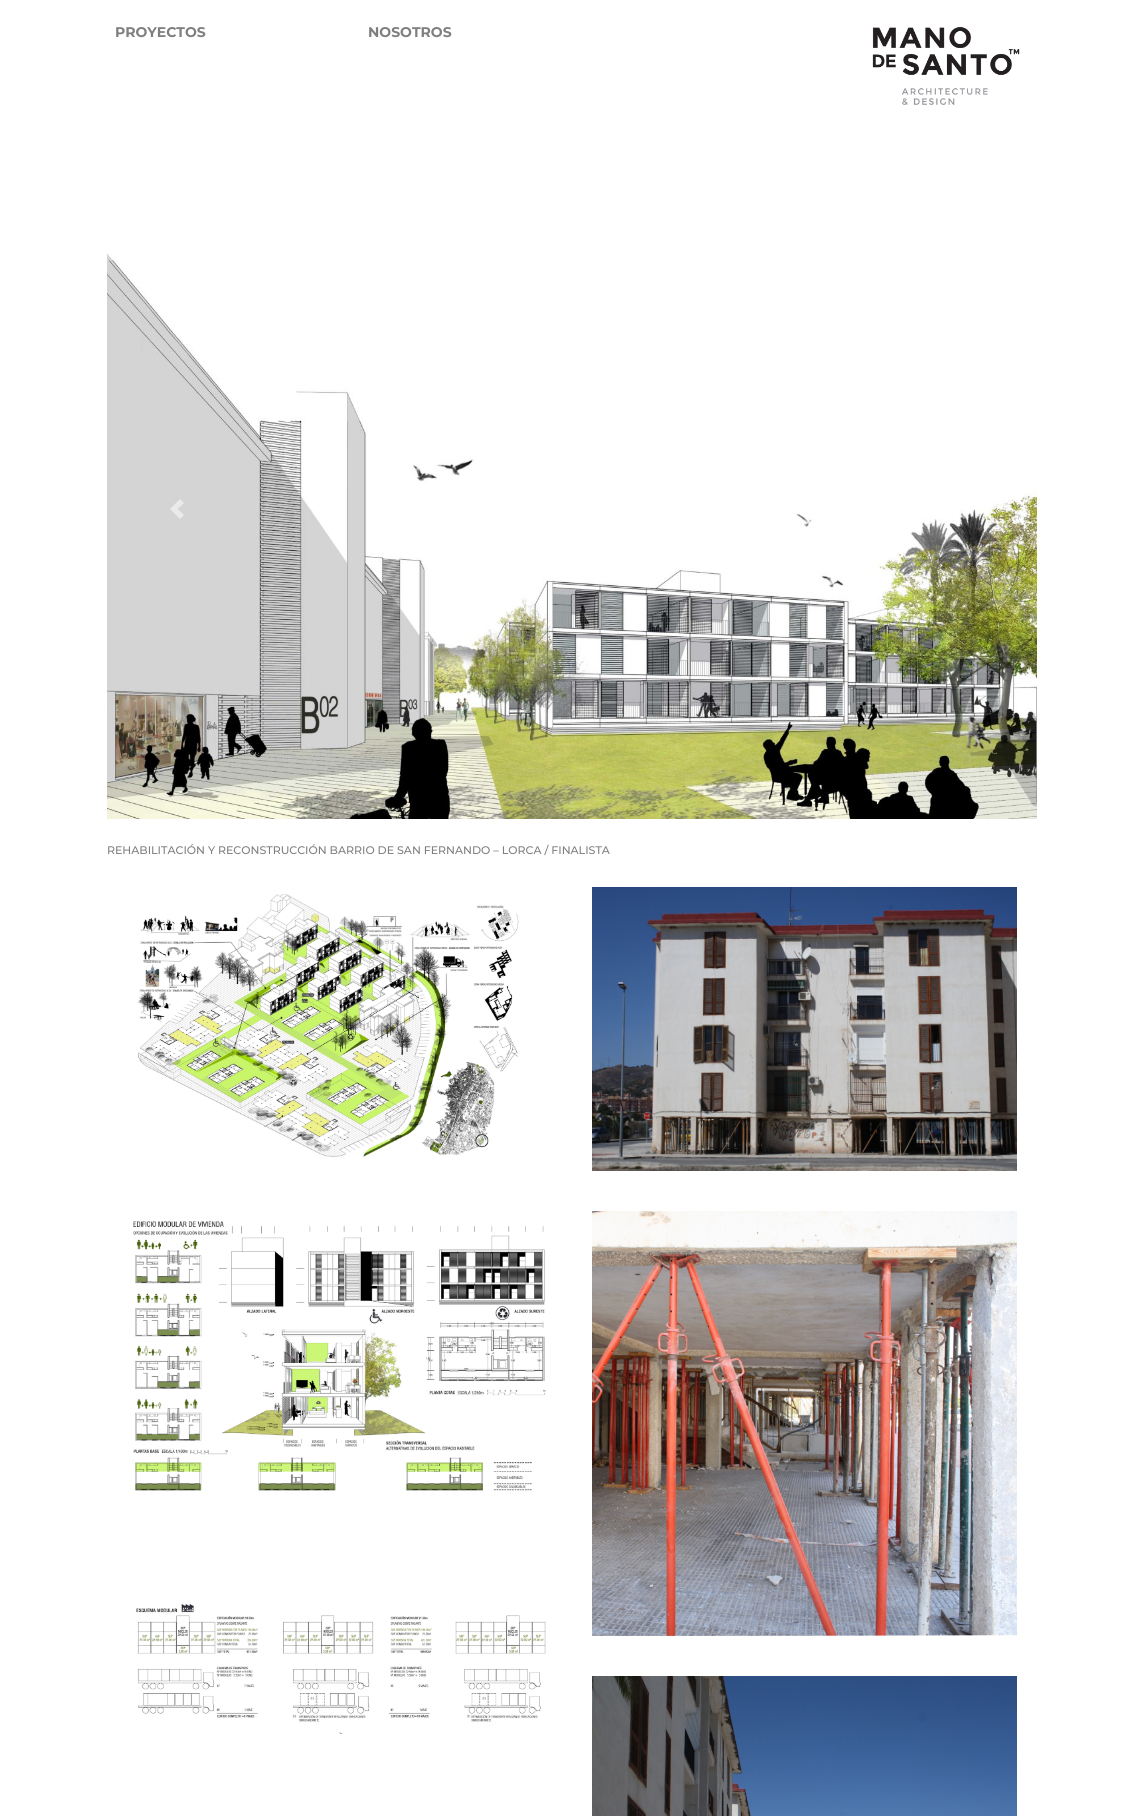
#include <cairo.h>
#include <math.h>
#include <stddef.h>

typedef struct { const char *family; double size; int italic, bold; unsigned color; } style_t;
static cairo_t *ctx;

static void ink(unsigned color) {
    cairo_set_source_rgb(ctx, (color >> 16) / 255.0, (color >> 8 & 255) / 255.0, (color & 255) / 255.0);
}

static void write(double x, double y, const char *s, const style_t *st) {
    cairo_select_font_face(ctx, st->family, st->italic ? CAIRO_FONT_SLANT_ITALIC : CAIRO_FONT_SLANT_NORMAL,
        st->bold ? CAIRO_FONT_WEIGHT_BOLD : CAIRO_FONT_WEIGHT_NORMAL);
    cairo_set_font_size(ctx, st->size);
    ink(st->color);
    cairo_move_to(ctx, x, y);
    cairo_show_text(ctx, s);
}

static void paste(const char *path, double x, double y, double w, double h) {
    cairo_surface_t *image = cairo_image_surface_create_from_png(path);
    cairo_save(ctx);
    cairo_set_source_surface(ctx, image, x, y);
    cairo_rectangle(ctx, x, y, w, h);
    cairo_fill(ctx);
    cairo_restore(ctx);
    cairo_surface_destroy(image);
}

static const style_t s1 = {"Montserrat", 14, 0, 1, 0x7f7f7f};
static const style_t s2 = {"Montserrat Medium", 11, 0, 0, 0x7f7f7f};

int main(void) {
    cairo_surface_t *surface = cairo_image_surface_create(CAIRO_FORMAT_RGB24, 1144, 1816);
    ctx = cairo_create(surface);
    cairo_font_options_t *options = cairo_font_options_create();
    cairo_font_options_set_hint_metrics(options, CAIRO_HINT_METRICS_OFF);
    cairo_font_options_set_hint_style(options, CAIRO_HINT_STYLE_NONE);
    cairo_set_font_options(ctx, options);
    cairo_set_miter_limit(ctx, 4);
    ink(0xffffff);
    cairo_paint(ctx);
    write(115, 37, "PROYECTOS", &s1);
    write(368, 37, "NOSOTROS", &s1);
    paste("pic1.png", 872, 26, 148, 79);
    paste("pic2.png", 107, 253, 930, 566);
    ink(0xeaeaea);
    cairo_new_path(ctx);
    cairo_move_to(ctx, 180, 499);
    cairo_line_to(ctx, 170, 509);
    cairo_line_to(ctx, 180, 519);
    cairo_line_to(ctx, 184, 515);
    cairo_line_to(ctx, 177.5, 509);
    cairo_line_to(ctx, 184, 503);
    cairo_close_path(ctx);
    cairo_fill(ctx);
    cairo_set_source_rgba(ctx, 1, 1, 1, 0.5);
    cairo_new_path(ctx);
    cairo_move_to(ctx, 964, 499);
    cairo_line_to(ctx, 960, 503);
    cairo_line_to(ctx, 966.5, 509);
    cairo_line_to(ctx, 960, 515);
    cairo_line_to(ctx, 964, 519);
    cairo_line_to(ctx, 974, 509);
    cairo_close_path(ctx);
    cairo_fill(ctx);
    write(107, 854, "REHABILITACIÓN Y RECONSTRUCCIÓN BARRIO DE SAN FERNANDO – LORCA / FINALISTA", &s2);
    paste("pic3.png", 137, 894, 382, 263);
    paste("pic4.png", 592, 887, 425, 284);
    paste("pic5.png", 133, 1221, 413, 270);
    paste("pic6.png", 592, 1211, 425, 425);
    paste("pic7.png", 136, 1603, 410, 131);
    paste("pic8.png", 592, 1676, 425, 140);
    cairo_surface_write_to_png(surface, "screenshot.png");
    cairo_font_options_destroy(options);
    cairo_destroy(ctx);
    cairo_surface_destroy(surface);
    return 0;
}
